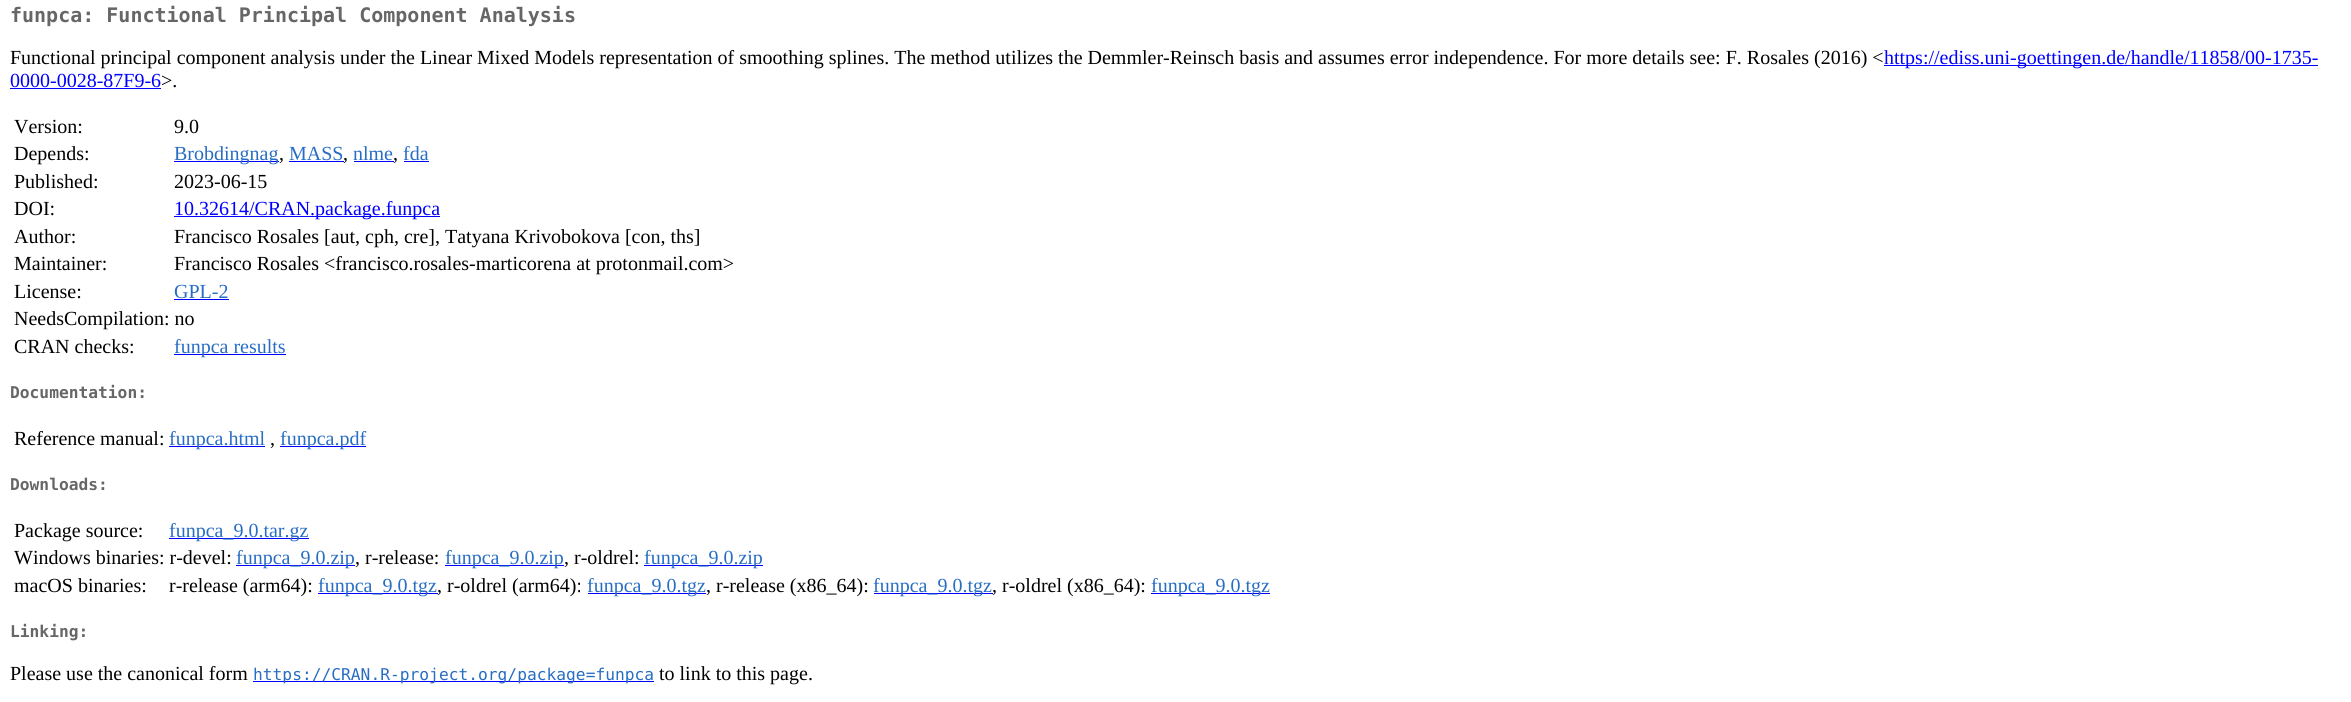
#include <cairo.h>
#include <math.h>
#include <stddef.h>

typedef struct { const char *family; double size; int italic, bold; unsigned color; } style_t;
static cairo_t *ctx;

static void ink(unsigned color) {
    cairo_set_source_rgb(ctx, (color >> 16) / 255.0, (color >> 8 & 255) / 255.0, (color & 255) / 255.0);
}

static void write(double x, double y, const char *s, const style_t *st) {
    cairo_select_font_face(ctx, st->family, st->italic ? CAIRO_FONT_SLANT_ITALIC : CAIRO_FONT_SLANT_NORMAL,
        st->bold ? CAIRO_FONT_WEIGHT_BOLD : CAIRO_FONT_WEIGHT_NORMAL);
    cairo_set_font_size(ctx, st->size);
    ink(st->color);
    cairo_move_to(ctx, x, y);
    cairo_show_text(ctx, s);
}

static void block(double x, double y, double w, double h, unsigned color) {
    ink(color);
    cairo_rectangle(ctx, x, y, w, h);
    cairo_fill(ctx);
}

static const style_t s1 = {"DejaVu Sans Mono", 20, 0, 1, 0x666666};
static const style_t s2 = {"Liberation Serif", 20, 0, 0, 0x000000};
static const style_t s3 = {"Liberation Serif", 20, 0, 0, 0x0000ff};
static const style_t s4 = {"Liberation Serif", 20, 0, 0, 0x276dc3};
static const style_t s5 = {"DejaVu Sans Mono", 16.25, 0, 1, 0x666666};
static const style_t s6 = {"DejaVu Sans Mono", 16.25, 0, 0, 0x276dc3};

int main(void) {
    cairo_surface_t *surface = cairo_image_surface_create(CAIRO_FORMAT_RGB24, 2351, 702);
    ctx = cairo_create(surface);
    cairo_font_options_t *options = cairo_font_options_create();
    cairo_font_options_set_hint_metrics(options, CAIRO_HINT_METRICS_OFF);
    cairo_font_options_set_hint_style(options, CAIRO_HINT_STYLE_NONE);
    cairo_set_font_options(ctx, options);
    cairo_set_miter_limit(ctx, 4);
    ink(0xffffff);
    cairo_paint(ctx);
    write(10, 22, "funpca: Functional Principal Component Analysis", &s1);
    write(10, 64, "Functional principal component analysis under the Linear Mixed Models representation of smoothing splines. The method utilizes the Demmler-Reinsch basis and assumes error independence. For more details see: F. Rosales (2016) <", &s2);
    block(1884, 65, 434, 1, 0x0000ff);
    write(1884, 64, "https://ediss.uni-goettingen.de/handle/11858/00-1735-", &s3);
    write(10, 87, "0000-0028-87F9-6", &s3);
    block(10, 88, 151, 1, 0x0000ff);
    write(161, 87, ">.", &s2);
    write(14, 133, "Version:", &s2);
    write(174, 133, "9.0", &s2);
    write(14, 160, "Depends:", &s2);
    block(174, 161, 105, 1, 0x0000ff);
    write(174, 160, "Brobdingnag", &s4);
    write(279, 160, ",", &s2);
    write(289, 160, "MASS", &s4);
    block(289, 161, 55, 1, 0x0000ff);
    write(343, 160, ",", &s2);
    write(353, 160, "nlme", &s4);
    block(354, 161, 40, 1, 0x0000ff);
    write(393, 160, ",", &s2);
    write(403, 160, "fda", &s4);
    block(404, 161, 25, 1, 0x0000ff);
    write(14, 188, "Published:", &s2);
    write(174, 188, "2023-06-15", &s2);
    write(14, 215, "DOI:", &s2);
    block(174, 216, 266, 1, 0x0000ff);
    write(174, 215, "10.32614/CRAN.package.funpca", &s3);
    write(14, 243, "Author:", &s2);
    write(174, 243, "Francisco Rosales [aut, cph, cre], Tatyana Krivobokova [con, ths]", &s2);
    write(14, 270, "Maintainer:", &s2);
    write(174, 270, "Francisco Rosales <francisco.rosales-marticorena at protonmail.com>", &s2);
    write(14, 298, "License:", &s2);
    write(174, 298, "GPL-2", &s4);
    block(174, 299, 55, 1, 0x0000ff);
    write(14, 325, "NeedsCompilation: no", &s2);
    write(14, 353, "CRAN checks:", &s2);
    block(174, 354, 112, 1, 0x0000ff);
    write(174, 353, "funpca results", &s4);
    write(10, 398, "Documentation:", &s5);
    write(14, 445, "Reference manual:", &s2);
    block(169, 446, 96, 1, 0x0000ff);
    write(169, 445, "funpca.html", &s4);
    write(270, 445, ",", &s2);
    block(280, 446, 86, 1, 0x0000ff);
    write(280, 445, "funpca.pdf", &s4);
    write(10, 490, "Downloads:", &s5);
    write(14, 537, "Package source:", &s2);
    block(169, 538, 140, 1, 0x0000ff);
    write(169, 537, "funpca_9.0.tar.gz", &s4);
    write(14, 564, "Windows binaries: r-devel:", &s2);
    block(236, 565, 119, 1, 0x0000ff);
    write(236, 564, "funpca_9.0.zip", &s4);
    write(355, 564, ", r-release:", &s2);
    block(445, 565, 119, 1, 0x0000ff);
    write(445, 564, "funpca_9.0.zip", &s4);
    write(564, 564, ", r-oldrel:", &s2);
    block(644, 565, 119, 1, 0x0000ff);
    write(644, 564, "funpca_9.0.zip", &s4);
    write(14, 592, "macOS binaries:", &s2);
    write(169, 592, "r-release (arm64):", &s2);
    block(318, 593, 120, 1, 0x0000ff);
    write(318, 592, "funpca_9.0.tgz", &s4);
    write(437, 592, ", r-oldrel (arm64):", &s2);
    block(588, 593, 118, 1, 0x0000ff);
    write(587, 592, "funpca_9.0.tgz", &s4);
    write(706, 592, ", r-release (x86_64):", &s2);
    block(874, 593, 119, 1, 0x0000ff);
    write(873, 592, "funpca_9.0.tgz", &s4);
    write(992, 592, ", r-oldrel (x86_64):", &s2);
    block(1151, 593, 119, 1, 0x0000ff);
    write(1151, 592, "funpca_9.0.tgz", &s4);
    write(10, 637, "Linking:", &s5);
    write(10, 680, "Please use the canonical form", &s2);
    block(253, 681, 401, 1, 0x0000ff);
    write(253, 680, "https://CRAN.R-project.org/package=funpca", &s6);
    write(659, 680, "to link to this page.", &s2);
    cairo_surface_write_to_png(surface, "screenshot.png");
    cairo_font_options_destroy(options);
    cairo_destroy(ctx);
    cairo_surface_destroy(surface);
    return 0;
}
